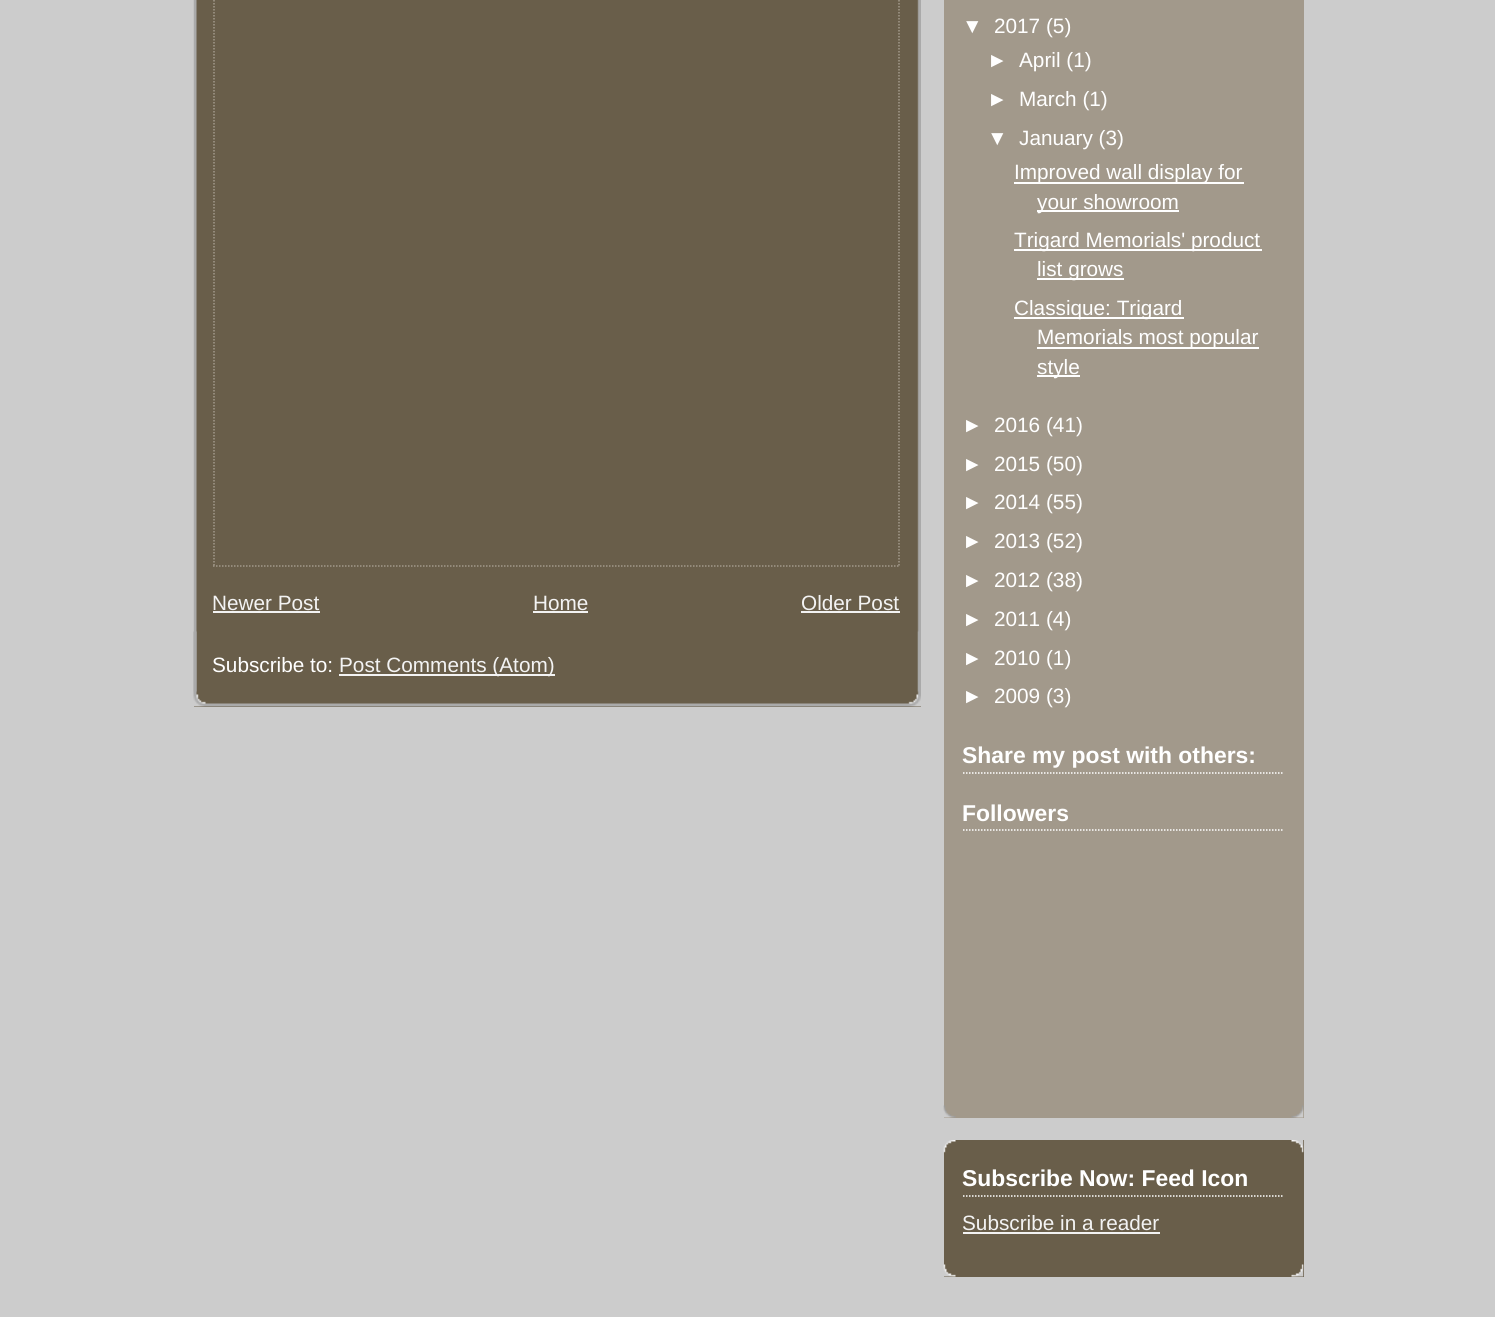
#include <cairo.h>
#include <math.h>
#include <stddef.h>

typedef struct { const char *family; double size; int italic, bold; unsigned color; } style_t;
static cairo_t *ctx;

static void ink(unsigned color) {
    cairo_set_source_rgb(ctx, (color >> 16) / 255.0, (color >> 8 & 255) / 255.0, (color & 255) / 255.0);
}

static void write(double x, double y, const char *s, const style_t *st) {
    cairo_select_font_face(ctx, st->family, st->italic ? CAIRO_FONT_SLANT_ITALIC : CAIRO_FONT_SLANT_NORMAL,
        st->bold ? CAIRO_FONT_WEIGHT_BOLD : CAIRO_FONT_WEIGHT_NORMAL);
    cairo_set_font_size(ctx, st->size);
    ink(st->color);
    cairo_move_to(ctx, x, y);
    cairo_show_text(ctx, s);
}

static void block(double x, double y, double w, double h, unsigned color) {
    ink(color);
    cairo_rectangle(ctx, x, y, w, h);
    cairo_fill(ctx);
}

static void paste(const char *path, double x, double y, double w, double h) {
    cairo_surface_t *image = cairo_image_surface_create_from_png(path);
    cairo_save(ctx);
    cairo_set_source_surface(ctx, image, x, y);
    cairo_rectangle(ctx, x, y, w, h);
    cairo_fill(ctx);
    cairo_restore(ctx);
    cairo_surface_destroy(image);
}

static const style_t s1 = {"Liberation Sans", 20.75, 0, 0, 0xf3f3f3};
static const style_t s2 = {"Liberation Sans", 20.75, 0, 0, 0xffffff};
static const style_t s3 = {"Liberation Sans", 22.9, 0, 1, 0xffffff};

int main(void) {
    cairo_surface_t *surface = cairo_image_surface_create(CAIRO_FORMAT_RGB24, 1495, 1317);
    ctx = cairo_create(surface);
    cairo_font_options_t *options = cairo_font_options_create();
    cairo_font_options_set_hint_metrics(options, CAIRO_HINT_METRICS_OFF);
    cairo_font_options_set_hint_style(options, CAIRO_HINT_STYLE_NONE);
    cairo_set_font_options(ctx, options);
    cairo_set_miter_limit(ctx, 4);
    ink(0xcccccc);
    cairo_paint(ctx);
    block(194, 0, 727, 707, 0x695e4a);
    paste("pic1.png", 193, 631, 728, 76);
    paste("pic2.png", 193, 0, 728, 692);
    cairo_new_path(ctx);
    cairo_move_to(ctx, 899, -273);
    cairo_line_to(ctx, 899, 567);
    ink(0xa2998b);
    cairo_set_line_width(ctx, 1.5);
    cairo_set_dash(ctx, (double[]){1.5, 1.5}, 2, 0);
    cairo_stroke(ctx);
    cairo_new_path(ctx);
    cairo_move_to(ctx, 213, 566);
    cairo_line_to(ctx, 900, 566);
    cairo_stroke(ctx);
    cairo_new_path(ctx);
    cairo_move_to(ctx, 214, -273);
    cairo_line_to(ctx, 214, 567);
    cairo_stroke(ctx);
    write(212, 610, "Newer Post", &s1);
    block(213, 611, 107, 2, 0xf3f3f3);
    write(533, 610, "Home", &s1);
    block(533, 611, 55, 2, 0xf3f3f3);
    write(801, 610, "Older Post", &s1);
    block(801, 611, 99, 2, 0xf3f3f3);
    write(212, 672, "Subscribe to:", &s2);
    block(339, 674, 216, 2, 0xf3f3f3);
    write(339, 672, "Post Comments (Atom)", &s1);
    block(944, 0, 360, 1118, 0xa2998b);
    paste("pic3.png", 943, 1105, 361, 13);
    write(962, 33, "▼", &s2);
    write(994, 33, "2017 (5)", &s2);
    write(987, 67, "►", &s2);
    write(1019, 67, "April (1)", &s2);
    write(987, 106, "►", &s2);
    write(1019, 106, "March (1)", &s2);
    write(987, 145, "▼", &s2);
    write(1019, 145, "January (3)", &s2);
    block(1014, 182, 230, 2, 0xffffff);
    write(1014, 179, "Improved wall display for", &s2);
    block(1037, 210, 142, 2, 0xffffff);
    write(1037, 209, "your showroom", &s2);
    block(1014, 249, 248, 2, 0xffffff);
    write(1014, 247, "Trigard Memorials' product", &s2);
    block(1037, 278, 87, 2, 0xffffff);
    write(1037, 276, "list grows", &s2);
    block(1014, 317, 170, 2, 0xffffff);
    write(1014, 315, "Classique: Trigard", &s2);
    block(1037, 347, 222, 2, 0xffffff);
    write(1037, 344, "Memorials most popular", &s2);
    block(1037, 375, 43, 2, 0xffffff);
    write(1037, 374, "style", &s2);
    write(962, 432, "►", &s2);
    write(994, 432, "2016 (41)", &s2);
    write(962, 471, "►", &s2);
    write(994, 471, "2015 (50)", &s2);
    write(962, 509, "►", &s2);
    write(994, 509, "2014 (55)", &s2);
    write(962, 548, "►", &s2);
    write(994, 548, "2013 (52)", &s2);
    write(962, 587, "►", &s2);
    write(994, 587, "2012 (38)", &s2);
    write(962, 626, "►", &s2);
    write(994, 626, "2011 (4)", &s2);
    write(962, 665, "►", &s2);
    write(994, 665, "2010 (1)", &s2);
    write(962, 703, "►", &s2);
    write(994, 703, "2009 (3)", &s2);
    cairo_new_path(ctx);
    cairo_move_to(ctx, 963, 773);
    cairo_line_to(ctx, 1284, 773);
    cairo_stroke(ctx);
    write(962, 763, "Share my post with others:", &s3);
    cairo_new_path(ctx);
    cairo_move_to(ctx, 963, 830);
    cairo_line_to(ctx, 1284, 830);
    cairo_stroke(ctx);
    write(962, 821, "Followers", &s3);
    block(944, 1140, 360, 137, 0x695e4a);
    paste("pic4.png", 943, 1140, 361, 13);
    paste("pic5.png", 943, 1264, 361, 13);
    cairo_new_path(ctx);
    cairo_move_to(ctx, 963, 1196);
    cairo_line_to(ctx, 1284, 1196);
    ink(0xffffff);
    cairo_stroke(ctx);
    write(962, 1186, "Subscribe Now: Feed Icon", &s3);
    write(962, 1230, "Subscribe in a reader", &s1);
    block(963, 1232, 197, 2, 0xf3f3f3);
    cairo_surface_write_to_png(surface, "screenshot.png");
    cairo_font_options_destroy(options);
    cairo_destroy(ctx);
    cairo_surface_destroy(surface);
    return 0;
}
